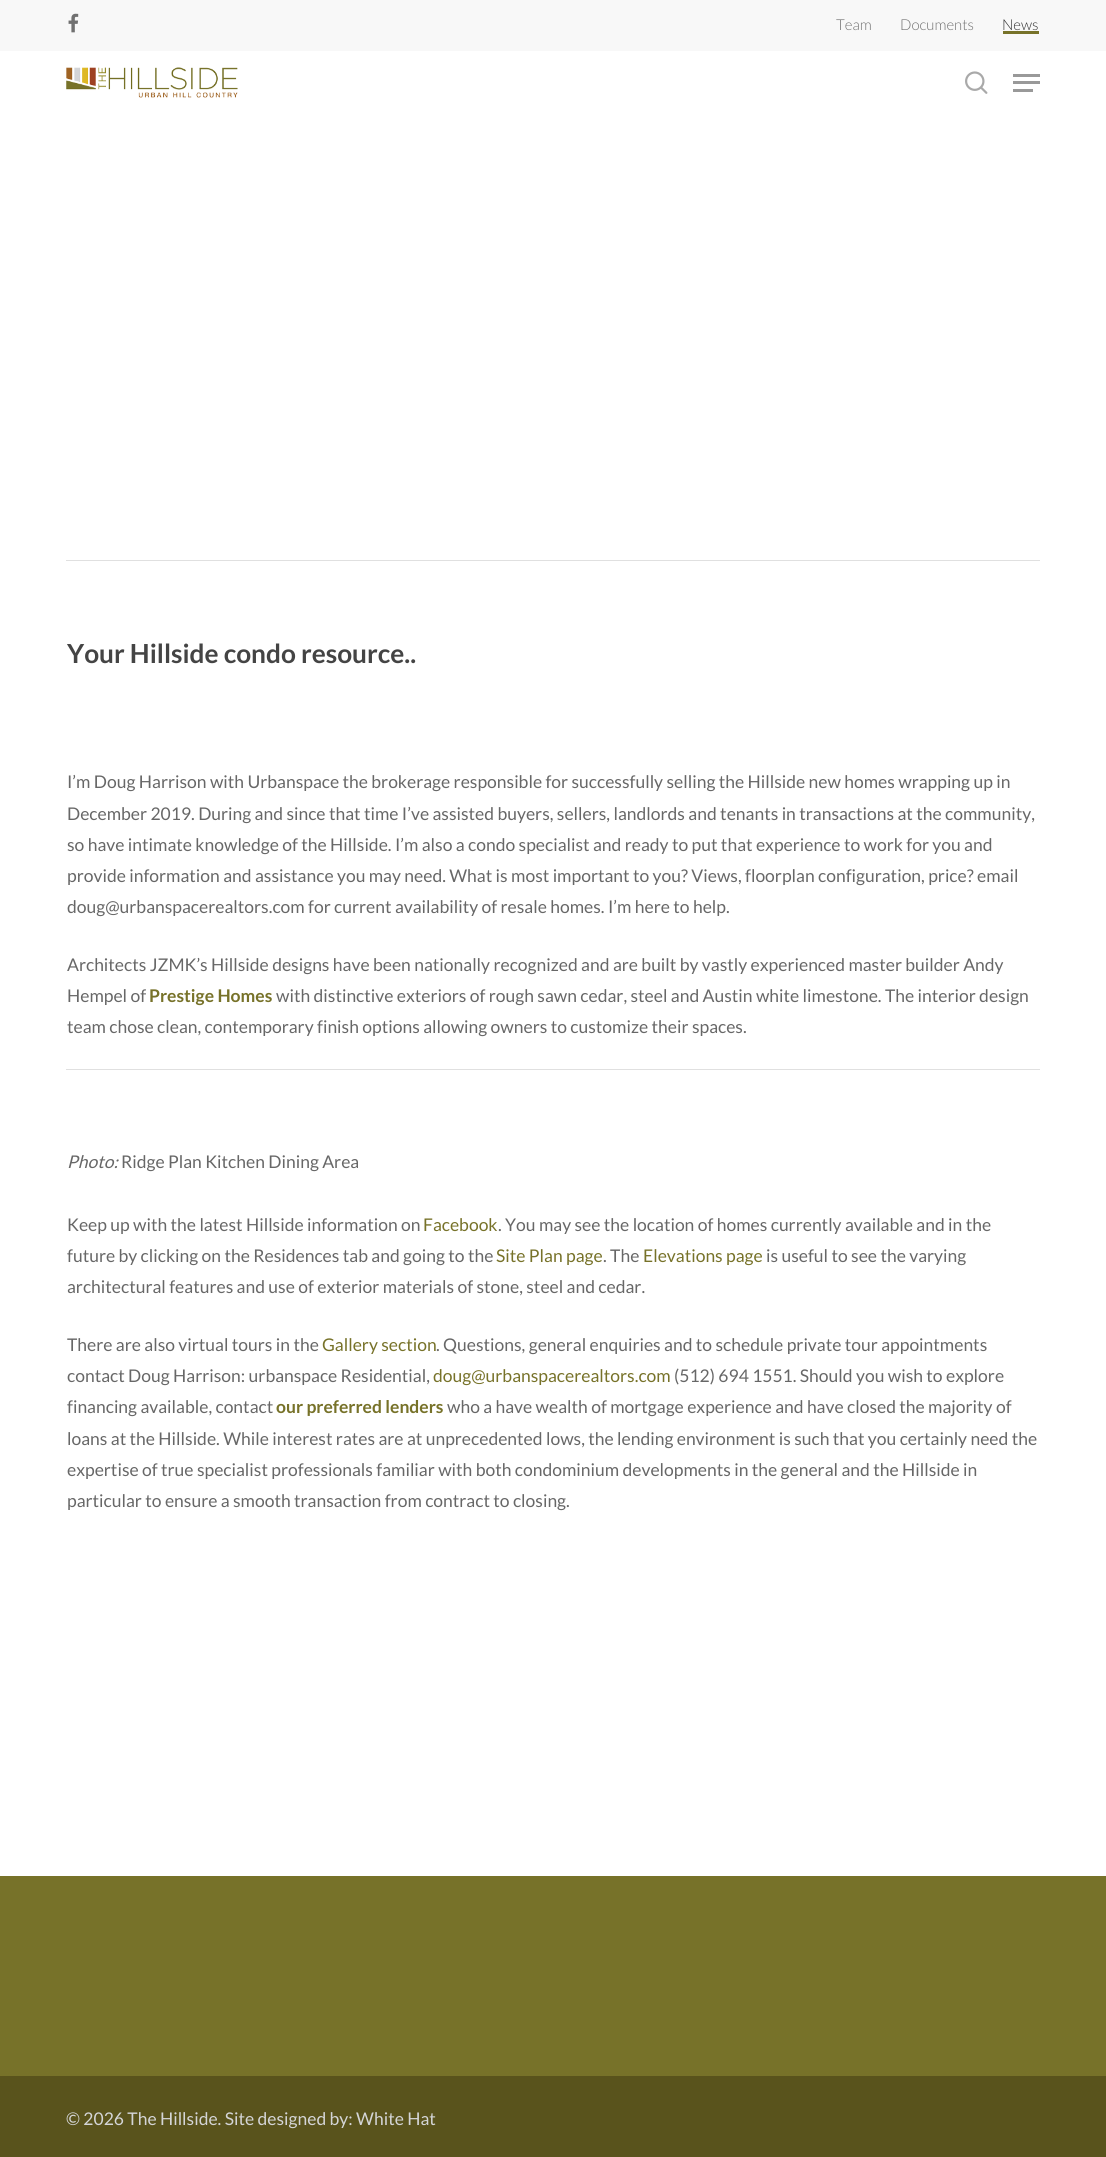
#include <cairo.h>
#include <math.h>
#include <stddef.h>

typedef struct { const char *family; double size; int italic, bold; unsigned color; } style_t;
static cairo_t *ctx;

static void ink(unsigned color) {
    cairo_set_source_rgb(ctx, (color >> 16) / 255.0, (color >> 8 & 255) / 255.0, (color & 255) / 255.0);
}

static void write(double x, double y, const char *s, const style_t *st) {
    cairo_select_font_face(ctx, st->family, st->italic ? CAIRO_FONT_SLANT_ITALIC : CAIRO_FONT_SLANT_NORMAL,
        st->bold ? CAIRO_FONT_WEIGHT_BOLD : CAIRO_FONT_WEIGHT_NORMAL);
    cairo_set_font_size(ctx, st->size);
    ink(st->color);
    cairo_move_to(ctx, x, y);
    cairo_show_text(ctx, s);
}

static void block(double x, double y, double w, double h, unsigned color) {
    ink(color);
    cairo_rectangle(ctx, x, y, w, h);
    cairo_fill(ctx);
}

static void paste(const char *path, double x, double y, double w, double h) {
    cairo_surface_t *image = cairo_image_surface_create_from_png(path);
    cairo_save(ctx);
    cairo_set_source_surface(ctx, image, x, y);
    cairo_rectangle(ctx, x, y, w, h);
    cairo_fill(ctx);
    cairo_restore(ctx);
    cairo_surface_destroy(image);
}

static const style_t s1 = {"Lato Light", 15, 0, 0, 0x707070};
static const style_t s2 = {"Lato Light", 15, 0, 0, 0x323232};
static const style_t s3 = {"Lato", 26.25, 0, 1, 0x444444};
static const style_t s4 = {"Lato", 17.5, 0, 0, 0x676767};
static const style_t s5 = {"Lato", 17.5, 0, 1, 0x777229};
static const style_t s6 = {"Lato", 17.5, 1, 0, 0x676767};
static const style_t s7 = {"Lato", 17.5, 0, 0, 0x777229};
static const style_t s8 = {"Lato", 17.5, 0, 0, 0xd4d5d7};

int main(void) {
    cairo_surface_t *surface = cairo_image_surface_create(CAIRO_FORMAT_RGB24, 1106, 2157);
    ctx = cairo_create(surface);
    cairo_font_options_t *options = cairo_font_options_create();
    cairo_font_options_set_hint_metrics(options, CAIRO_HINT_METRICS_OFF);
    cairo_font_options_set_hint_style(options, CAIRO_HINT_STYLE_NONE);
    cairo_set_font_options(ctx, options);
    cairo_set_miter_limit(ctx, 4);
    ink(0xffffff);
    cairo_paint(ctx);
    block(0, 0, 1106, 51, 0xf8f8f8);
    paste("pic1.png", 68, 13, 11, 20);
    write(836, 30, "Team", &s1);
    write(900, 30, "Documents", &s1);
    write(1002, 30, "News", &s2);
    block(1003, 31, 36, 3, 0x777229);
    paste("pic2.png", 66, 67, 172, 31);
    paste("pic3.png", 965, 71, 23, 23);
    block(1013, 74, 27, 3, 0x999999);
    block(1013, 89, 20, 3, 0x999999);
    block(1013, 81, 27, 3, 0x999999);
    block(66, 560, 974, 1, 0xe0e0e0);
    write(67, 663, "Your Hillside condo resource..", &s3);
    write(67, 788, "I’m Doug Harrison with Urbanspace the brokerage responsible for successfully selling the Hillside new homes wrapping up in", &s4);
    write(67, 820, "December 2019. During and since that time I’ve assisted buyers, sellers, landlords and tenants in transactions at the community,", &s4);
    write(67, 851, "so have intimate knowledge of the Hillside. I’m also a condo specialist and ready to put that experience to work for you and", &s4);
    write(67, 882, "provide information and assistance you may need. What is most important to you? Views, floorplan configuration, price? email", &s4);
    write(67, 913, "doug@urbanspacerealtors.com for current availability of resale homes. I’m here to help.", &s4);
    write(67, 971, "Architects JZMK’s Hillside designs have been nationally recognized and are built by vastly experienced master builder Andy", &s4);
    write(67, 1002, "Hempel of", &s4);
    write(149, 1002, "Prestige Homes", &s5);
    write(276, 1002, "with distinctive exteriors of rough sawn cedar, steel and Austin white limestone. The interior design", &s4);
    write(67, 1033, "team chose clean, contemporary finish options allowing owners to customize their spaces.", &s4);
    block(66, 1069, 974, 1, 0xe0e0e0);
    write(67, 1168, "Photo:", &s6);
    write(121, 1168, "Ridge Plan Kitchen Dining Area", &s4);
    write(67, 1231, "Keep up with the latest Hillside information on", &s4);
    write(423, 1231, "Facebook", &s7);
    write(498, 1231, ". You may see the location of homes currently available and in the", &s4);
    write(67, 1262, "future by clicking on the Residences tab and going to the", &s4);
    write(496, 1262, "Site Plan page", &s7);
    write(603, 1262, ". The", &s4);
    write(643, 1262, "Elevations page", &s7);
    write(766, 1262, "is useful to see the varying", &s4);
    write(67, 1293, "architectural features and use of exterior materials of stone, steel and cedar.", &s4);
    write(67, 1351, "There are also virtual tours in the", &s4);
    write(322, 1351, "Gallery section", &s7);
    write(436, 1351, ". Questions, general enquiries and to schedule private tour appointments", &s4);
    write(67, 1382, "contact Doug Harrison: urbanspace Residential,", &s4);
    write(433, 1382, "doug@urbanspacerealtors.com", &s7);
    write(674, 1382, "(512) 694 1551. Should you wish to explore", &s4);
    write(67, 1413, "financing available, contact", &s4);
    write(276, 1413, "our preferred lenders", &s5);
    write(447, 1413, "who a have wealth of mortgage experience and have closed the majority of", &s4);
    write(67, 1445, "loans at the Hillside. While interest rates are at unprecedented lows, the lending environment is such that you certainly need the", &s4);
    write(67, 1476, "expertise of true specialist professionals familiar with both condominium developments in the general and the Hillside in", &s4);
    write(67, 1507, "particular to ensure a smooth transaction from contract to closing.", &s4);
    block(0, 1876, 1106, 200, 0x777229);
    block(0, 2076, 1106, 81, 0x59531c);
    write(66, 2125, "© 2026 The Hillside. Site designed by: White Hat", &s8);
    cairo_surface_write_to_png(surface, "screenshot.png");
    cairo_font_options_destroy(options);
    cairo_destroy(ctx);
    cairo_surface_destroy(surface);
    return 0;
}
